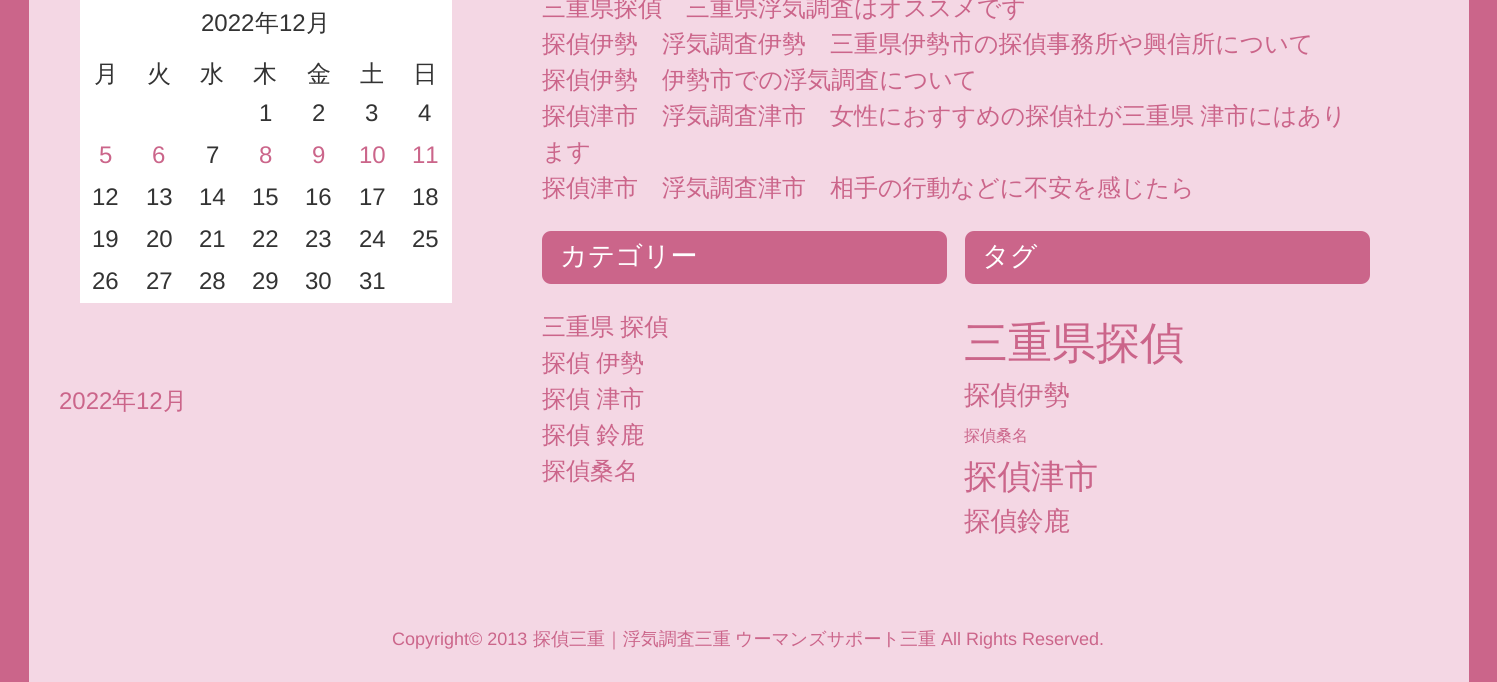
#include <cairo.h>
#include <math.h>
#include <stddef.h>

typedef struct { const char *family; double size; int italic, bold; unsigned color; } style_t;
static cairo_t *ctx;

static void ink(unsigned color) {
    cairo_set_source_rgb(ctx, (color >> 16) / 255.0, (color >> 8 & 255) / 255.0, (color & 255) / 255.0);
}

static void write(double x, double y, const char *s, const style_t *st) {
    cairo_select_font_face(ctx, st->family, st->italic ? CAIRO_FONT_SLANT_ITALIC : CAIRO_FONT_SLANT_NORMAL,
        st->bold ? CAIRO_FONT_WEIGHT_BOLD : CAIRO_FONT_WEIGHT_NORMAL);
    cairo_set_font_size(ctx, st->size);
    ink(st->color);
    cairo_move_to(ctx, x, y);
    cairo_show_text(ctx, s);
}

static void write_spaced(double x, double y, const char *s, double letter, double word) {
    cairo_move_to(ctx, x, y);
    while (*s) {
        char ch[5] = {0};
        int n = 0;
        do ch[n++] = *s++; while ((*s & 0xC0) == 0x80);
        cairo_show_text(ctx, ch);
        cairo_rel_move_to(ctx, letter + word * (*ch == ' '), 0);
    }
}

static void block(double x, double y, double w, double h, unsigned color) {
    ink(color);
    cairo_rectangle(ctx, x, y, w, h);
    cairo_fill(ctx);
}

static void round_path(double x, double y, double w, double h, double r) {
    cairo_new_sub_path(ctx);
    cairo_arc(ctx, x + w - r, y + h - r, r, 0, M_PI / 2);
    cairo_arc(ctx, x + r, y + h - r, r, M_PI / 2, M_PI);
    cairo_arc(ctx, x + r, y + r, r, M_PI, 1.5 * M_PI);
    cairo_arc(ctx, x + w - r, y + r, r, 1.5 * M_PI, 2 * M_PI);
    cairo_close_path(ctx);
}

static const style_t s1 = {"Liberation Sans", 24, 0, 0, 0x333333};
static const style_t s2 = {"WenQuanYi Zen Hei Medium", 24, 0, 0, 0x333333};
static const style_t s3 = {"Liberation Sans", 24, 0, 0, 0xcb658a};
static const style_t s4 = {"WenQuanYi Zen Hei Medium", 24, 0, 0, 0xcb658a};
static const style_t s5 = {"WenQuanYi Zen Hei Medium", 27, 0, 0, 0xffffff};
static const style_t s6 = {"WenQuanYi Zen Hei Medium", 44, 0, 0, 0xcb658a};
static const style_t s7 = {"WenQuanYi Zen Hei Medium", 26.5, 0, 0, 0xcb658a};
static const style_t s8 = {"WenQuanYi Zen Hei Medium", 16, 0, 0, 0xcb658a};
static const style_t s9 = {"WenQuanYi Zen Hei Medium", 33.5, 0, 0, 0xcb658a};
static const style_t s10 = {"Liberation Sans", 18, 0, 0, 0xcb658a};
static const style_t s11 = {"WenQuanYi Zen Hei Medium", 18, 0, 0, 0xcb658a};

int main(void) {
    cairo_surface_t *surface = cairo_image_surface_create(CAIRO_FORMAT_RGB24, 1497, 682);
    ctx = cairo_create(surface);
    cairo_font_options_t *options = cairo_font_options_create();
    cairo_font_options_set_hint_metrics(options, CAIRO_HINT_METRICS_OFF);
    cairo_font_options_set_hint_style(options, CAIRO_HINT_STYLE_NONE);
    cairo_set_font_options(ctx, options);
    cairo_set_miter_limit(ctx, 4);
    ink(0xcb658a);
    cairo_paint(ctx);
    block(29, 0, 1440, 682, 0xf4d7e4);
    block(80, 0, 372, 303, 0xffffff);
    write(201, 31, "2022", &s1);
    write(255, 31, "年", &s2);
    write(279, 31, "12", &s1);
    write(306, 31, "月", &s2);
    write(94, 82, "月", &s2);
    write(147, 82, "火", &s2);
    write(200, 82, "水", &s2);
    write(253, 82, "木", &s2);
    write(307, 82, "金", &s2);
    write(360, 82, "土", &s2);
    write(413, 82, "日", &s2);
    write(259, 121, "1", &s1);
    write(312, 121, "2", &s1);
    write(365, 121, "3", &s1);
    write(418, 121, "4", &s1);
    write(99, 163, "5", &s3);
    write(152, 163, "6", &s3);
    write(206, 163, "7", &s1);
    write(259, 163, "8", &s3);
    write(312, 163, "9", &s3);
    write(359, 163, "10", &s3);
    write(412, 163, "11", &s3);
    write(92, 205, "12", &s1);
    write(146, 205, "13", &s1);
    write(199, 205, "14", &s1);
    write(252, 205, "15", &s1);
    write(305, 205, "16", &s1);
    write(359, 205, "17", &s1);
    write(412, 205, "18", &s1);
    write(92, 247, "19", &s1);
    write(146, 247, "20", &s1);
    write(199, 247, "21", &s1);
    write(252, 247, "22", &s1);
    write(305, 247, "23", &s1);
    write(359, 247, "24", &s1);
    write(412, 247, "25", &s1);
    write(92, 289, "26", &s1);
    write(146, 289, "27", &s1);
    write(199, 289, "28", &s1);
    write(252, 289, "29", &s1);
    write(305, 289, "30", &s1);
    write(359, 289, "31", &s1);
    write(59, 409, "2022", &s3);
    write(112, 409, "年", &s4);
    write(136, 409, "12", &s3);
    write(163, 409, "月", &s4);
    write(542, 16, "三重県探偵　三重県浮気調査はオススメです", &s4);
    write(542, 52, "探偵伊勢　浮気調査伊勢　三重県伊勢市の探偵事務所や興信所について", &s4);
    write(542, 88, "探偵伊勢　伊勢市での浮気調査について", &s4);
    write_spaced(542, 124, "探偵津市　浮気調査津市　女性におすすめの探偵社が三重県 津市にはあり", 0, -1);
    write(542, 160, "ます", &s4);
    write(542, 196, "探偵津市　浮気調査津市　相手の行動などに不安を感じたら", &s4);
    round_path(542, 231, 405, 53, 9);
    cairo_fill(ctx);
    write(560, 265, "カテゴリー", &s5);
    cairo_set_font_size(ctx, 24);
    ink(0xcb658a);
    write_spaced(542, 335, "三重県 探偵", 0, -1);
    write_spaced(542, 371, "探偵 伊勢", 0, -1);
    write_spaced(542, 407, "探偵 津市", 0, -1);
    write_spaced(542, 443, "探偵 鈴鹿", 0, -1);
    write(542, 479, "探偵桑名", &s4);
    round_path(965, 231, 405, 53, 9);
    cairo_fill(ctx);
    write(982, 265, "タグ", &s5);
    write(964, 358, "三重県探偵", &s6);
    write(964, 404, "探偵伊勢", &s7);
    write(964, 441, "探偵桑名", &s8);
    write(964, 488, "探偵津市", &s9);
    write(964, 530, "探偵鈴鹿", &s7);
    write(392, 645, "Copyright© 2013", &s10);
    write(533, 645, "探偵三重｜浮気調査三重", &s11);
    write(735, 645, "ウーマンズサポート三重", &s11);
    write(941, 645, "All Rights Reserved.", &s10);
    cairo_surface_write_to_png(surface, "screenshot.png");
    cairo_font_options_destroy(options);
    cairo_destroy(ctx);
    cairo_surface_destroy(surface);
    return 0;
}
